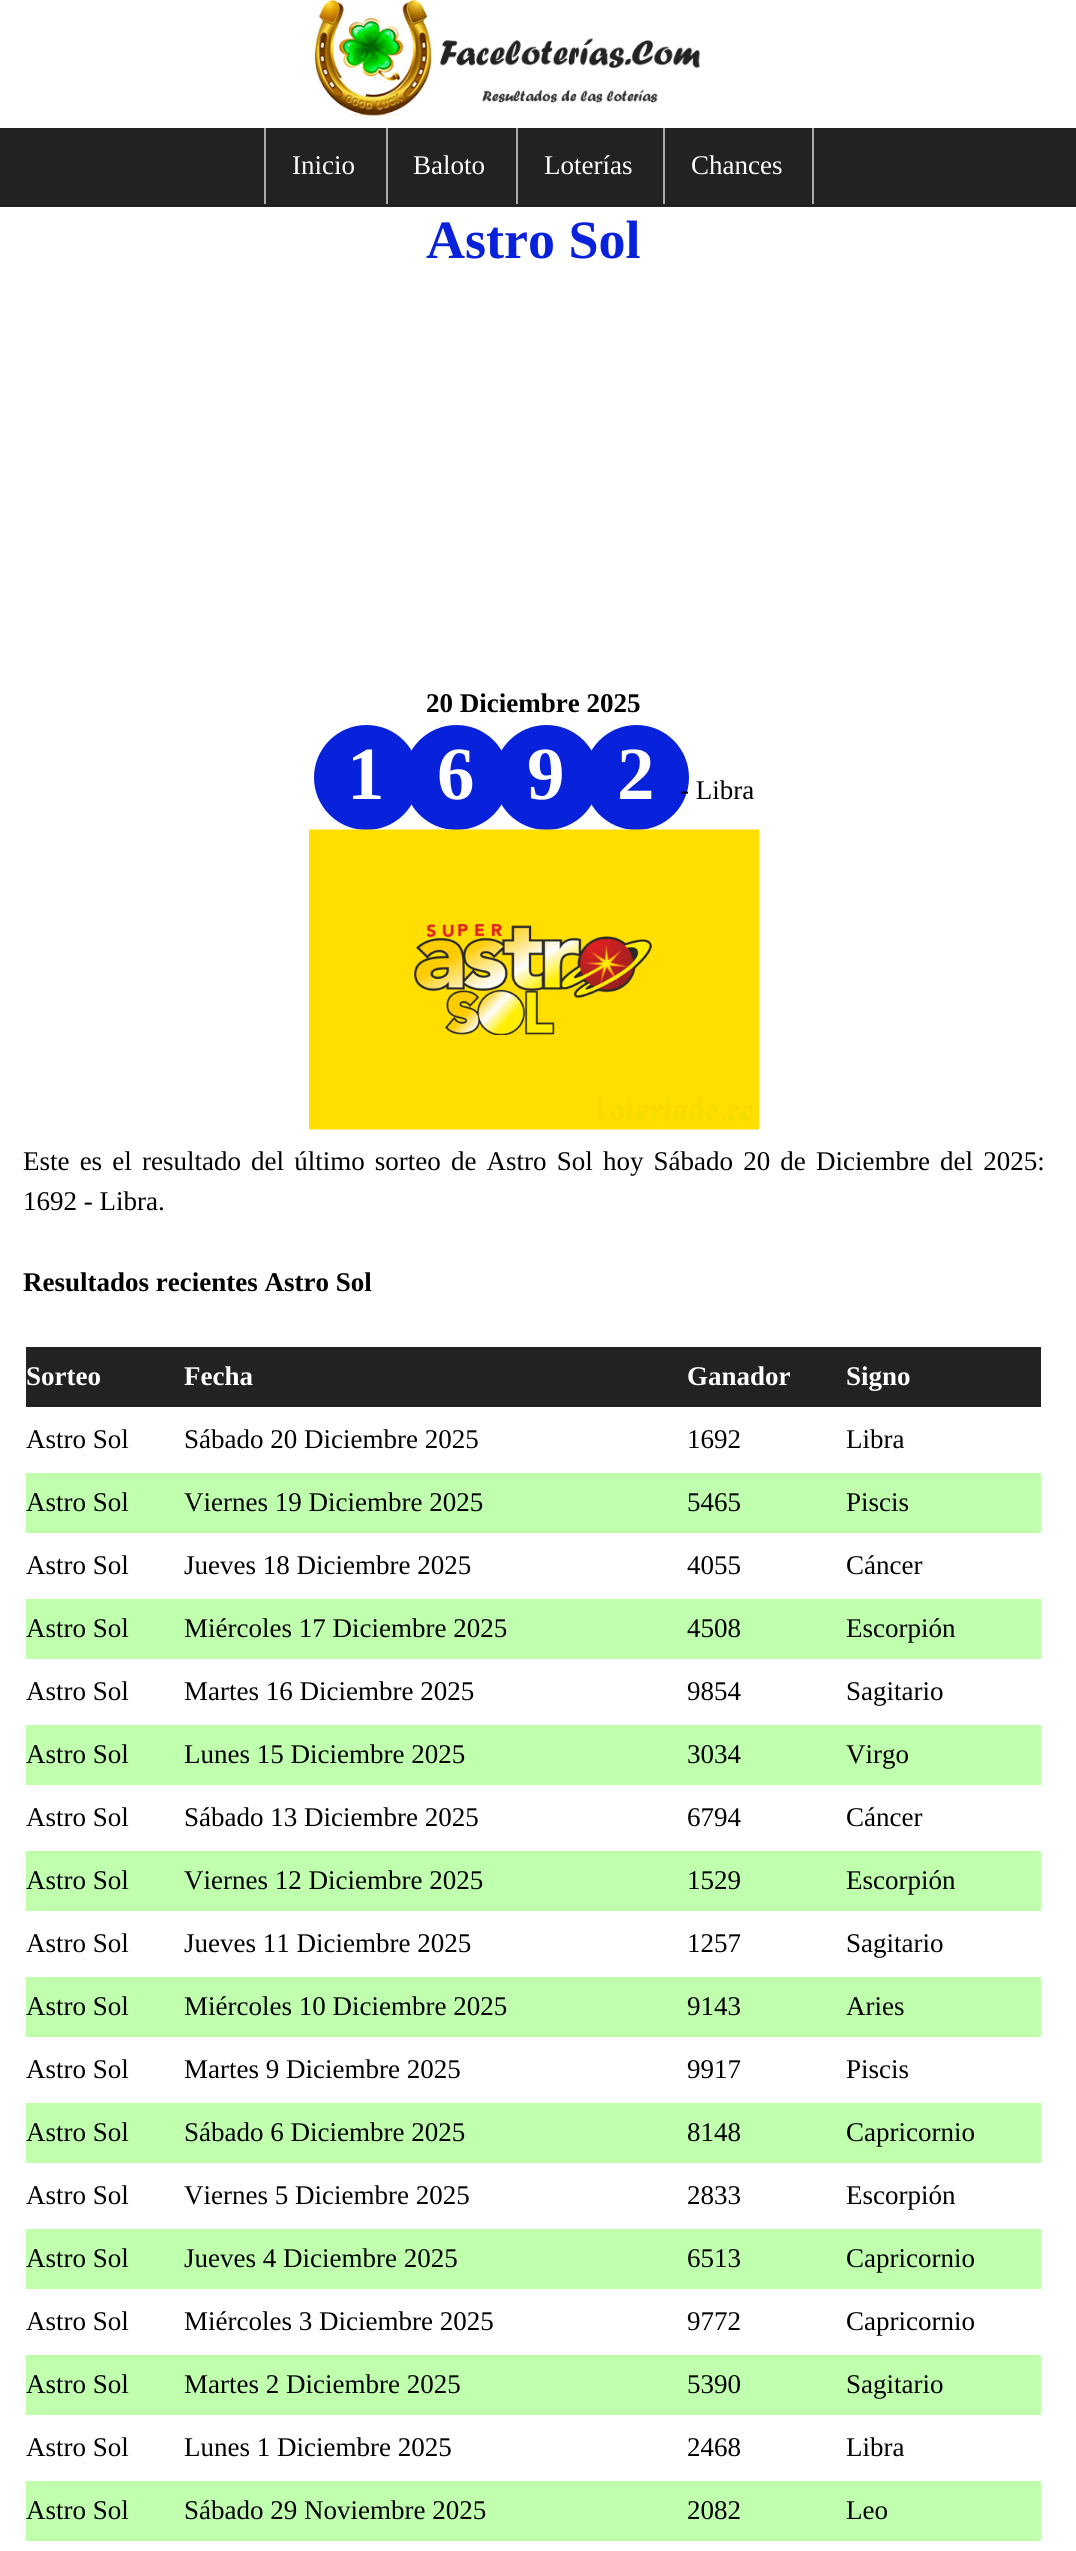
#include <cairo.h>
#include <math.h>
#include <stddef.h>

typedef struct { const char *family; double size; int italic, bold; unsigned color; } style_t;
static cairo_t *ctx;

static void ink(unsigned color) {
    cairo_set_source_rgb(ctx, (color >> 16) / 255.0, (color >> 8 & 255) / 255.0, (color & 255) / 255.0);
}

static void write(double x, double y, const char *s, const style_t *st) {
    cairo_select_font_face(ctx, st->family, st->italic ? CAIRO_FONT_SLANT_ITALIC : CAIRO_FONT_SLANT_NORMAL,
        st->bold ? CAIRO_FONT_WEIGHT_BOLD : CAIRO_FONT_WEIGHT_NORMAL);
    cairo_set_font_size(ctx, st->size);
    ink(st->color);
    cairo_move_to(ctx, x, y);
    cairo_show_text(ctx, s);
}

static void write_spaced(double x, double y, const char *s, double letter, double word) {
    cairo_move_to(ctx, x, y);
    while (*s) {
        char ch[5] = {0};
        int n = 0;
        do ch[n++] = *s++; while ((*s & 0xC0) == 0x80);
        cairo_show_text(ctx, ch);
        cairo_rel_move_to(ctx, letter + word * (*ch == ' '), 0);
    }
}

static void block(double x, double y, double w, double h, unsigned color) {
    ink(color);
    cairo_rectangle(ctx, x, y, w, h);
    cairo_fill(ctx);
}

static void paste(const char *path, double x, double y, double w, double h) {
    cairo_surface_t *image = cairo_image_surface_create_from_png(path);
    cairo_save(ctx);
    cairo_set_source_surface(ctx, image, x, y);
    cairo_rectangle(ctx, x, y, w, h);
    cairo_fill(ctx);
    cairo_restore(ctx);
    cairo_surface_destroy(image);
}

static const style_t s1 = {"Liberation Serif", 27, 0, 0, 0xffffff};
static const style_t s2 = {"Liberation Serif", 54, 0, 1, 0x0821db};
static const style_t s3 = {"Liberation Serif", 27, 0, 1, 0x000000};
static const style_t s4 = {"Liberation Serif", 75, 0, 1, 0xffffff};
static const style_t s5 = {"Liberation Serif", 27, 0, 0, 0x000000};
static const style_t s6 = {"Liberation Serif", 27, 0, 1, 0xffffff};

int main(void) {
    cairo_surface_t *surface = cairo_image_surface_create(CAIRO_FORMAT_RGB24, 1076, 2551);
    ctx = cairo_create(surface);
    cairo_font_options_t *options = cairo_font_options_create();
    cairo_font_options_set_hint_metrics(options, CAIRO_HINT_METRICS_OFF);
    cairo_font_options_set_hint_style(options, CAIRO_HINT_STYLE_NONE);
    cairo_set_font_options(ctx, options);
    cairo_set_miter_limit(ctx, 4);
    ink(0xffffff);
    cairo_paint(ctx);
    paste("pic1.png", 315, 0, 385, 116);
    block(0, 128, 1076, 79, 0x222222);
    block(386, 128, 2, 76, 0xababab);
    block(264, 128, 2, 76, 0xababab);
    write(292, 174, "Inicio", &s1);
    block(516, 128, 2, 76, 0xababab);
    write(413, 174, "Baloto", &s1);
    block(663, 128, 2, 76, 0xababab);
    write(544, 174, "Loterías", &s1);
    block(812, 128, 2, 76, 0xababab);
    write(691, 174, "Chances", &s1);
    write(426, 258, "Astro Sol", &s2);
    write(426, 712, "20 Diciembre 2025", &s3);
    ink(0x0821db);
    cairo_new_path(ctx);
    cairo_arc(ctx, 366.5, 777.5, 52.5, 0, 2 * M_PI);
    cairo_fill(ctx);
    write(347, 799, "1", &s4);
    ink(0x0821db);
    cairo_new_path(ctx);
    cairo_arc(ctx, 456.5, 777.5, 52.5, 0, 2 * M_PI);
    cairo_fill(ctx);
    write(437, 799, "6", &s4);
    ink(0x0821db);
    cairo_new_path(ctx);
    cairo_arc(ctx, 546.5, 777.5, 52.5, 0, 2 * M_PI);
    cairo_fill(ctx);
    write(527, 799, "9", &s4);
    ink(0x0821db);
    cairo_new_path(ctx);
    cairo_arc(ctx, 636.5, 777.5, 52.5, 0, 2 * M_PI);
    cairo_fill(ctx);
    write(617, 799, "2", &s4);
    write(680, 799, "- Libra", &s5);
    paste("pic2.png", 309, 829, 450, 301);
    write_spaced(23, 1170, "Este es el resultado del último sorteo de Astro Sol hoy Sábado 20 de Diciembre del 2025:", 0, 3.4);
    write(23, 1210, "1692 - Libra.", &s5);
    write(23, 1291, "Resultados recientes Astro Sol", &s3);
    block(26, 1347, 1015, 60, 0x222222);
    write(26, 1385, "Sorteo", &s6);
    write(184, 1385, "Fecha", &s6);
    write(687, 1385, "Ganador", &s6);
    write(846, 1385, "Signo", &s6);
    write(26, 1448, "Astro Sol", &s5);
    write(184, 1448, "Sábado 20 Diciembre 2025", &s5);
    write(687, 1448, "1692", &s5);
    write(846, 1448, "Libra", &s5);
    block(26, 1473, 1015, 60, 0xbfffae);
    write(26, 1511, "Astro Sol", &s5);
    write(184, 1511, "Viernes 19 Diciembre 2025", &s5);
    write(687, 1511, "5465", &s5);
    write(846, 1511, "Piscis", &s5);
    write(26, 1574, "Astro Sol", &s5);
    write(184, 1574, "Jueves 18 Diciembre 2025", &s5);
    write(687, 1574, "4055", &s5);
    write(846, 1574, "Cáncer", &s5);
    block(26, 1599, 1015, 60, 0xbfffae);
    write(26, 1637, "Astro Sol", &s5);
    write(184, 1637, "Miércoles 17 Diciembre 2025", &s5);
    write(687, 1637, "4508", &s5);
    write(846, 1637, "Escorpión", &s5);
    write(26, 1700, "Astro Sol", &s5);
    write(184, 1700, "Martes 16 Diciembre 2025", &s5);
    write(687, 1700, "9854", &s5);
    write(846, 1700, "Sagitario", &s5);
    block(26, 1725, 1015, 60, 0xbfffae);
    write(26, 1763, "Astro Sol", &s5);
    write(184, 1763, "Lunes 15 Diciembre 2025", &s5);
    write(687, 1763, "3034", &s5);
    write(846, 1763, "Virgo", &s5);
    write(26, 1826, "Astro Sol", &s5);
    write(184, 1826, "Sábado 13 Diciembre 2025", &s5);
    write(687, 1826, "6794", &s5);
    write(846, 1826, "Cáncer", &s5);
    block(26, 1851, 1015, 60, 0xbfffae);
    write(26, 1889, "Astro Sol", &s5);
    write(184, 1889, "Viernes 12 Diciembre 2025", &s5);
    write(687, 1889, "1529", &s5);
    write(846, 1889, "Escorpión", &s5);
    write(26, 1952, "Astro Sol", &s5);
    write(184, 1952, "Jueves 11 Diciembre 2025", &s5);
    write(687, 1952, "1257", &s5);
    write(846, 1952, "Sagitario", &s5);
    block(26, 1977, 1015, 60, 0xbfffae);
    write(26, 2015, "Astro Sol", &s5);
    write(184, 2015, "Miércoles 10 Diciembre 2025", &s5);
    write(687, 2015, "9143", &s5);
    write(846, 2015, "Aries", &s5);
    write(26, 2078, "Astro Sol", &s5);
    write(184, 2078, "Martes 9 Diciembre 2025", &s5);
    write(687, 2078, "9917", &s5);
    write(846, 2078, "Piscis", &s5);
    block(26, 2103, 1015, 60, 0xbfffae);
    write(26, 2141, "Astro Sol", &s5);
    write(184, 2141, "Sábado 6 Diciembre 2025", &s5);
    write(687, 2141, "8148", &s5);
    write(846, 2141, "Capricornio", &s5);
    write(26, 2204, "Astro Sol", &s5);
    write(184, 2204, "Viernes 5 Diciembre 2025", &s5);
    write(687, 2204, "2833", &s5);
    write(846, 2204, "Escorpión", &s5);
    block(26, 2229, 1015, 60, 0xbfffae);
    write(26, 2267, "Astro Sol", &s5);
    write(184, 2267, "Jueves 4 Diciembre 2025", &s5);
    write(687, 2267, "6513", &s5);
    write(846, 2267, "Capricornio", &s5);
    write(26, 2330, "Astro Sol", &s5);
    write(184, 2330, "Miércoles 3 Diciembre 2025", &s5);
    write(687, 2330, "9772", &s5);
    write(846, 2330, "Capricornio", &s5);
    block(26, 2355, 1015, 60, 0xbfffae);
    write(26, 2393, "Astro Sol", &s5);
    write(184, 2393, "Martes 2 Diciembre 2025", &s5);
    write(687, 2393, "5390", &s5);
    write(846, 2393, "Sagitario", &s5);
    write(26, 2456, "Astro Sol", &s5);
    write(184, 2456, "Lunes 1 Diciembre 2025", &s5);
    write(687, 2456, "2468", &s5);
    write(846, 2456, "Libra", &s5);
    block(26, 2481, 1015, 60, 0xbfffae);
    write(26, 2519, "Astro Sol", &s5);
    write(184, 2519, "Sábado 29 Noviembre 2025", &s5);
    write(687, 2519, "2082", &s5);
    write(846, 2519, "Leo", &s5);
    cairo_surface_write_to_png(surface, "screenshot.png");
    cairo_font_options_destroy(options);
    cairo_destroy(ctx);
    cairo_surface_destroy(surface);
    return 0;
}
